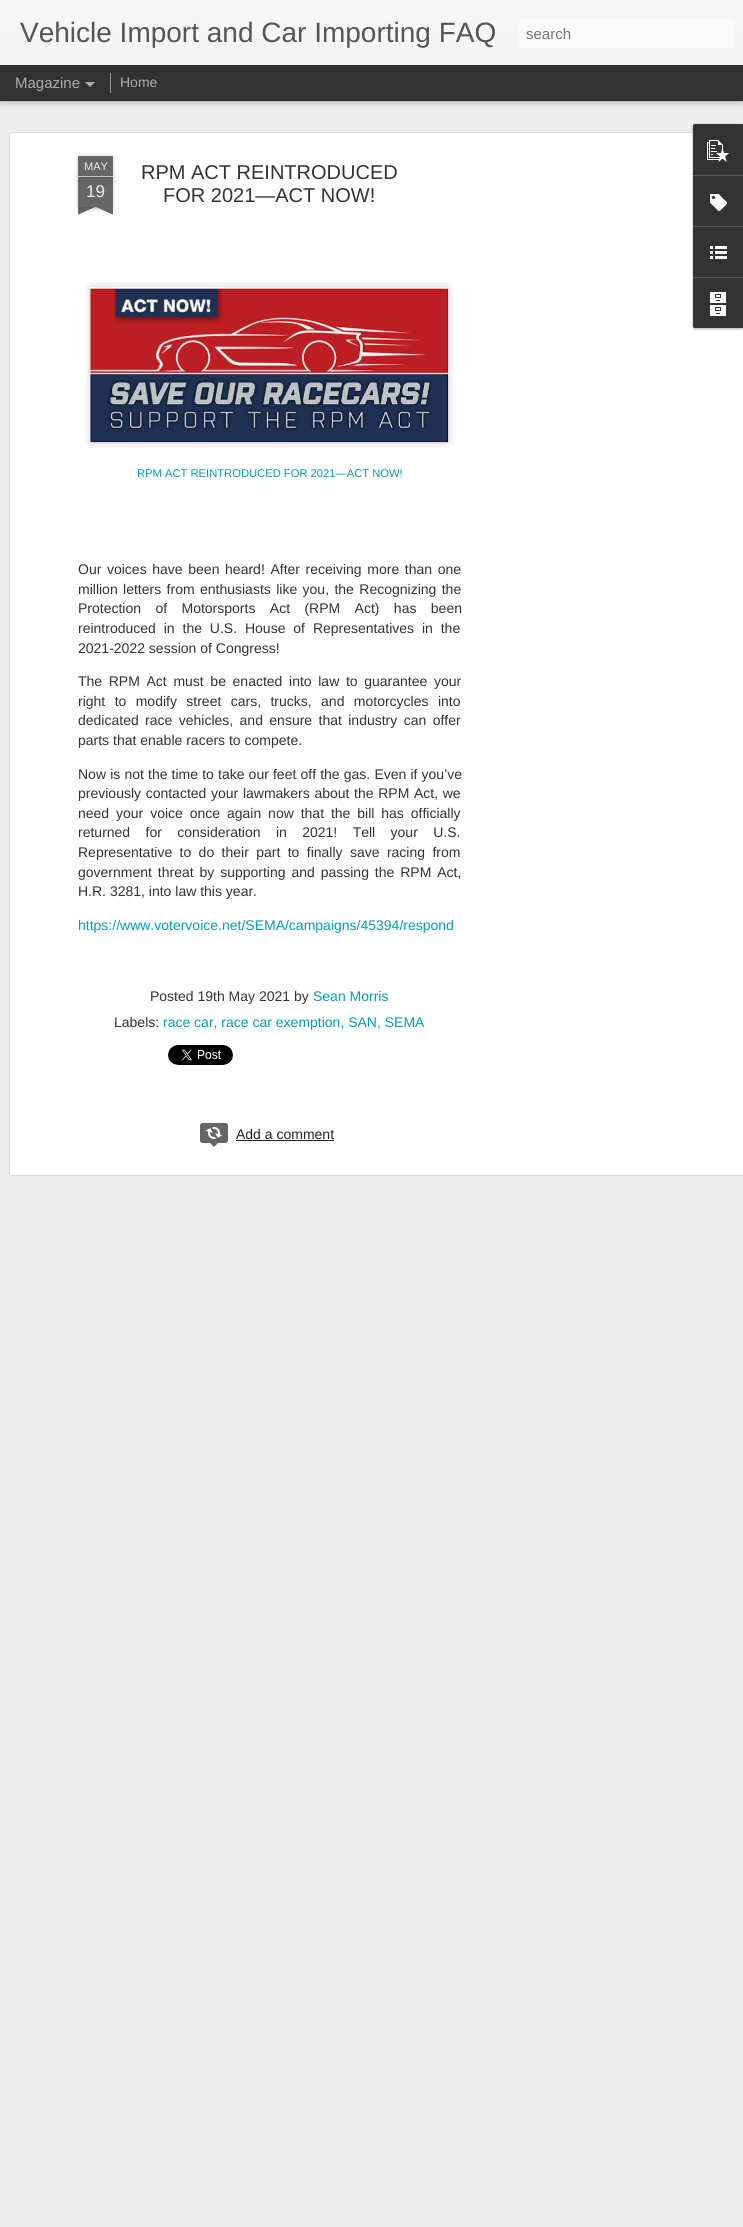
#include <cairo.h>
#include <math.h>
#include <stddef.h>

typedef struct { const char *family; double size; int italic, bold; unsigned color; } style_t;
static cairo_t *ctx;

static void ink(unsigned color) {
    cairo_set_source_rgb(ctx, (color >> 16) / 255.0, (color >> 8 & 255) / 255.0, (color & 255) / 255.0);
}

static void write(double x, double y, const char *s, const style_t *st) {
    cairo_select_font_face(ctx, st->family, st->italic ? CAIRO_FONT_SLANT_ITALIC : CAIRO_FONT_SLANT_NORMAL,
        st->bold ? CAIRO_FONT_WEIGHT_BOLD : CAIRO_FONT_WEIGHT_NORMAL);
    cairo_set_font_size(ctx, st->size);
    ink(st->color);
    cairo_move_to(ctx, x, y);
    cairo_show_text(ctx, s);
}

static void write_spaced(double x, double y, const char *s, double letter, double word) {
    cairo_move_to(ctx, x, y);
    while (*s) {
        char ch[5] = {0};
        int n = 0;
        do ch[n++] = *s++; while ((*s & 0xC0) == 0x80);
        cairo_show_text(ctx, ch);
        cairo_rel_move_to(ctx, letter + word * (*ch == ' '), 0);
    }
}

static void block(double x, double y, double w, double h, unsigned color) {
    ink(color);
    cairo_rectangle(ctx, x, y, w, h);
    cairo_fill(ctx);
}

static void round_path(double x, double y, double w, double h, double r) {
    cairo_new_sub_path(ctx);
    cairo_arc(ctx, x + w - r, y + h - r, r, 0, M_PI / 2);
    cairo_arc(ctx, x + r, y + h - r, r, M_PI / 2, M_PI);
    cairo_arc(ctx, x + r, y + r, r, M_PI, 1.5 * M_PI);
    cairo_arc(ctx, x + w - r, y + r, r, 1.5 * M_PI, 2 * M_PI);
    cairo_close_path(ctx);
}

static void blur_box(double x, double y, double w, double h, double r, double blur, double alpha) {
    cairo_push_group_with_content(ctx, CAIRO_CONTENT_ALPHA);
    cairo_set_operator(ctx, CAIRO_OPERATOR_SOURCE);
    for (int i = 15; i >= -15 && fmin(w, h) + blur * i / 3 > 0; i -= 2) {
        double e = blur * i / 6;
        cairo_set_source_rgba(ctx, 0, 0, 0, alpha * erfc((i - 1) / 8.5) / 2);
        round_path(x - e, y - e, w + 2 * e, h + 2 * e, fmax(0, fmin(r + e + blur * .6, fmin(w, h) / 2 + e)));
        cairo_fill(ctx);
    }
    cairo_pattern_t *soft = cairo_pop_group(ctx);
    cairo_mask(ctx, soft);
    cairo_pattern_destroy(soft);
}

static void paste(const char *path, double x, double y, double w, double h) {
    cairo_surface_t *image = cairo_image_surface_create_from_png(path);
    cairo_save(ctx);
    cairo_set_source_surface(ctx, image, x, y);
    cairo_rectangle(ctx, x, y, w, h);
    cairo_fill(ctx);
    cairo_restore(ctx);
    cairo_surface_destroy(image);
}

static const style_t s1 = {"Liberation Sans", 28, 0, 0, 0x555555};
static const style_t s2 = {"Liberation Sans", 15, 0, 0, 0x757575};
static const style_t s3 = {"Liberation Sans", 15, 0, 0, 0xadadad};
static const style_t s4 = {"Liberation Sans", 14, 0, 0, 0xadadad};
static const style_t s5 = {"Liberation Sans", 11, 0, 0, 0xeeeeee};
static const style_t s6 = {"Liberation Sans", 17, 0, 0, 0xeeeeee};
static const style_t s7 = {"Liberation Sans", 20, 0, 0, 0x333333};
static const style_t s8 = {"Liberation Sans", 11.2, 0, 0, 0x009eb8};
static const style_t s9 = {"Liberation Sans", 14, 0, 0, 0x333333};
static const style_t s10 = {"Liberation Sans", 14, 0, 0, 0x009eb8};
static const style_t s11 = {"Liberation Sans", 14, 0, 0, 0x222222};

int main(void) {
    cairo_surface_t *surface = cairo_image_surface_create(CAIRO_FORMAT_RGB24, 743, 2227);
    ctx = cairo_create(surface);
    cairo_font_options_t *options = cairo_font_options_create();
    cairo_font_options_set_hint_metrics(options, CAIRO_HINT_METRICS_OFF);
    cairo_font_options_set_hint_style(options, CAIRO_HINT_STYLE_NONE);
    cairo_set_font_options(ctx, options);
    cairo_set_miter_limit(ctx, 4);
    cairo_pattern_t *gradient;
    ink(0x333333);
    cairo_paint(ctx);
    block(0, 101, 743, 2126, 0xeeeeee);
    ink(0x000000);
    blur_box(0, 65, 743, 35, 0, 4, 0.5);
    block(0, 65, 743, 35, 0x333333);
    block(110, 73, 1, 20, 0x999999);
    ink(0x000000);
    blur_box(0, 0, 743, 65, 0, 2.5, 0.3);
    gradient = cairo_pattern_create_linear(0, 0, 0, 65);
    cairo_pattern_add_color_stop_rgba(gradient, 0, 0.969, 0.969, 0.969, 1);
    cairo_pattern_add_color_stop_rgba(gradient, 1, 0.957, 0.957, 0.957, 1);
    cairo_set_source(ctx, gradient);
    cairo_pattern_destroy(gradient);
    cairo_rectangle(ctx, 0, 0, 743, 65);
    cairo_fill(ctx);
    write(20, 42, "Vehicle Import and Car Importing FAQ", &s1);
    ink(0xfafafa);
    round_path(519, 18, 214, 30, 3);
    cairo_fill(ctx);
    write(526, 39, "search", &s2);
    write(15, 88, "Magazine", &s3);
    cairo_new_path(ctx);
    cairo_move_to(ctx, 85, 82);
    cairo_line_to(ctx, 95, 82);
    cairo_line_to(ctx, 90, 87);
    cairo_close_path(ctx);
    cairo_fill(ctx);
    write(120, 87, "Home", &s4);
    block(8, 131, 735, 1046, 0xffffff);
    paste("pic1.png", 8, 131, 735, 1046);
    ink(0x000000);
    blur_box(78, 177, 35, 30, 0, 2.5, 0.2);
    block(78, 177, 35, 30, 0x666666);
    ink(0x000000);
    blur_box(78, 156, 35, 21, 1, 2.5, 0.2);
    ink(0x666666);
    cairo_new_path(ctx);
    cairo_move_to(ctx, 79, 156);
    cairo_line_to(ctx, 112, 156);
    cairo_curve_to(ctx, 112.5, 156, 113, 156.5, 113, 157);
    cairo_line_to(ctx, 113, 177);
    cairo_line_to(ctx, 78, 177);
    cairo_line_to(ctx, 78, 157);
    cairo_curve_to(ctx, 78, 156.5, 78.5, 156, 79, 156);
    cairo_close_path(ctx);
    cairo_fill(ctx);
    block(78, 176, 35, 1, 0xc2c2c2);
    write(84, 170, "MAY", &s5);
    write(86, 197, "19", &s6);
    cairo_save(ctx);
    cairo_rectangle(ctx, 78, 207, 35, 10);
    cairo_clip(ctx);
    ink(0x000000);
    blur_box(69, 197, 50, 10, 0, 2.5, 0.2);
    cairo_restore(ctx);
    cairo_save(ctx);
    cairo_rectangle(ctx, 78, 207, 35, 10);
    cairo_clip(ctx);
    ink(0x666666);
    cairo_new_path(ctx);
    cairo_move_to(ctx, 69, 208);
    cairo_line_to(ctx, 115, 187);
    cairo_line_to(ctx, 119, 196);
    cairo_line_to(ctx, 73, 217);
    cairo_close_path(ctx);
    cairo_fill(ctx);
    cairo_restore(ctx);
    cairo_save(ctx);
    cairo_rectangle(ctx, 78, 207, 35, 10);
    cairo_clip(ctx);
    ink(0x000000);
    blur_box(72, 197, 50, 10, 0, 2.5, 0.2);
    cairo_restore(ctx);
    cairo_save(ctx);
    cairo_rectangle(ctx, 78, 207, 35, 10);
    cairo_clip(ctx);
    ink(0x666666);
    cairo_new_path(ctx);
    cairo_move_to(ctx, 76, 187);
    cairo_line_to(ctx, 122, 208);
    cairo_line_to(ctx, 118, 217);
    cairo_line_to(ctx, 72, 196);
    cairo_close_path(ctx);
    cairo_fill(ctx);
    cairo_restore(ctx);
    write(141, 179, "RPM ACT REINTRODUCED", &s7);
    write(163, 202, "FOR 2021—ACT NOW!", &s7);
    paste("pic2.png", 85, 282, 369, 166);
    paste("pic3.png", 90, 288, 359, 155);
    write(137, 477, "RPM ACT REINTRODUCED FOR 2021—ACT NOW!", &s8);
    cairo_set_font_size(ctx, 14);
    ink(0x333333);
    write_spaced(78, 574, "Our voices have been heard! After receiving more than one", 0, 1.75);
    write_spaced(78, 594, "million letters from enthusiasts like you, the Recognizing the", 0, 1.5);
    write_spaced(78, 613, "Protection of Motorsports Act (RPM Act) has been", 0, 10.5);
    write_spaced(78, 633, "reintroduced in the U.S. House of Representatives in the", 0, 4);
    write(78, 653, "2021-2022 session of Congress!", &s9);
    write_spaced(78, 686, "The RPM Act must be enacted into law to guarantee your", 0, 2.75);
    write_spaced(78, 706, "right to modify street cars, trucks, and motorcycles into", 0, 5.5);
    write_spaced(78, 725, "dedicated race vehicles, and ensure that industry can offer", 0, 2.5);
    write(78, 745, "parts that enable racers to compete.", &s9);
    write_spaced(78, 779, "Now is not the time to take our feet off the gas. Even if you’ve", 0, 0.25);
    write_spaced(78, 798, "previously contacted your lawmakers about the RPM Act, we", 0, 0.75);
    write_spaced(78, 818, "need your voice once again now that the bill has officially", 0, 3);
    write_spaced(78, 837, "returned for consideration in 2021! Tell your U.S.", 0, 11.5);
    write_spaced(78, 857, "Representative to do their part to finally save racing from", 0, 3.5);
    write_spaced(78, 877, "government threat by supporting and passing the RPM Act,", 0, 2);
    write(78, 896, "H.R. 3281, into law this year.", &s9);
    write(78, 930, "https://www.votervoice.net/SEMA/campaigns/45394/respond", &s10);
    write(150, 1001, "Posted 19th May 2021 by", &s9);
    write(313, 1001, "Sean Morris", &s10);
    write(114, 1027, "Labels:", &s9);
    write(163, 1027, "race car, race car exemption, SAN, SEMA", &s10);
    paste("pic4.png", 168, 1045, 65, 20);
    ink(0x666666);
    round_path(200, 1123, 28, 20, 3);
    cairo_fill(ctx);
    paste("pic5.png", 206, 1127, 16, 12);
    round_path(200.5, 1123.5, 27, 19, 2.5);
    cairo_set_line_width(ctx, 1);
    cairo_stroke(ctx);
    cairo_new_path(ctx);
    cairo_move_to(ctx, 209, 1142);
    cairo_line_to(ctx, 219, 1142);
    cairo_line_to(ctx, 214, 1147);
    cairo_close_path(ctx);
    cairo_fill(ctx);
    write(236, 1139, "Add a comment", &s11);
    block(236, 1140, 98, 1, 0x222222);
    ink(0x000000);
    blur_box(693, 125, 50, 204, 2, 1.5, 0.3);
    ink(0x333333);
    cairo_new_path(ctx);
    cairo_move_to(ctx, 695, 124);
    cairo_line_to(ctx, 743, 124);
    cairo_line_to(ctx, 743, 328);
    cairo_line_to(ctx, 695, 328);
    cairo_curve_to(ctx, 694, 328, 693, 327, 693, 326);
    cairo_line_to(ctx, 693, 126);
    cairo_curve_to(ctx, 693, 125, 694, 124, 695, 124);
    cairo_close_path(ctx);
    cairo_fill(ctx);
    cairo_new_path(ctx);
    cairo_move_to(ctx, 695, 124);
    cairo_line_to(ctx, 743, 124);
    cairo_line_to(ctx, 743, 175);
    cairo_line_to(ctx, 693, 175);
    cairo_line_to(ctx, 693, 126);
    cairo_curve_to(ctx, 693, 125, 694, 124, 695, 124);
    cairo_close_path(ctx);
    cairo_fill(ctx);
    paste("pic6.png", 707, 140, 22, 22);
    block(693, 175, 50, 1, 0x585858);
    paste("pic7.png", 710, 194, 17, 17);
    block(693, 226, 50, 1, 0x585858);
    paste("pic8.png", 710, 246, 17, 13);
    ink(0x333333);
    cairo_new_path(ctx);
    cairo_move_to(ctx, 693, 277);
    cairo_line_to(ctx, 743, 277);
    cairo_line_to(ctx, 743, 328);
    cairo_line_to(ctx, 695, 328);
    cairo_curve_to(ctx, 694, 328, 693, 327, 693, 326);
    cairo_close_path(ctx);
    cairo_fill(ctx);
    block(693, 277, 50, 1, 0x585858);
    paste("pic9.png", 710, 292, 16, 24);
    cairo_surface_write_to_png(surface, "screenshot.png");
    cairo_font_options_destroy(options);
    cairo_destroy(ctx);
    cairo_surface_destroy(surface);
    return 0;
}
